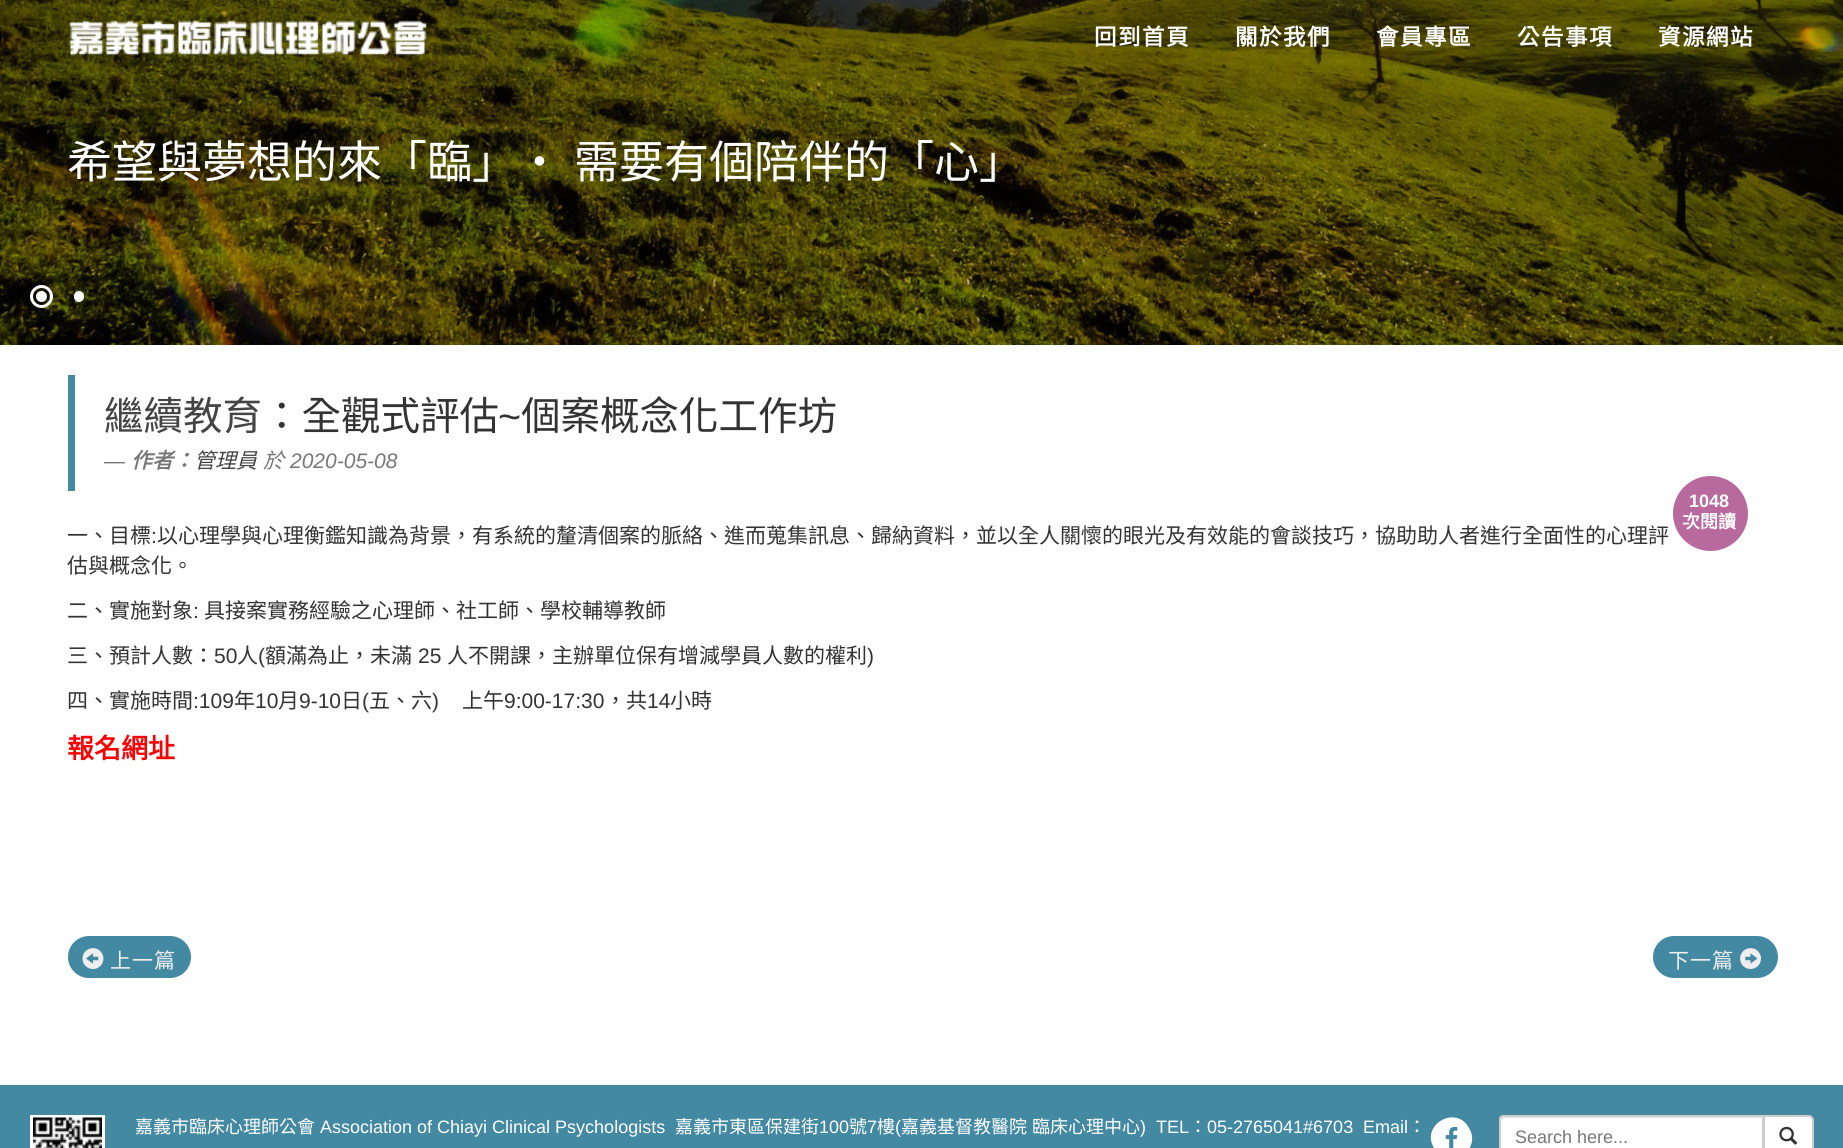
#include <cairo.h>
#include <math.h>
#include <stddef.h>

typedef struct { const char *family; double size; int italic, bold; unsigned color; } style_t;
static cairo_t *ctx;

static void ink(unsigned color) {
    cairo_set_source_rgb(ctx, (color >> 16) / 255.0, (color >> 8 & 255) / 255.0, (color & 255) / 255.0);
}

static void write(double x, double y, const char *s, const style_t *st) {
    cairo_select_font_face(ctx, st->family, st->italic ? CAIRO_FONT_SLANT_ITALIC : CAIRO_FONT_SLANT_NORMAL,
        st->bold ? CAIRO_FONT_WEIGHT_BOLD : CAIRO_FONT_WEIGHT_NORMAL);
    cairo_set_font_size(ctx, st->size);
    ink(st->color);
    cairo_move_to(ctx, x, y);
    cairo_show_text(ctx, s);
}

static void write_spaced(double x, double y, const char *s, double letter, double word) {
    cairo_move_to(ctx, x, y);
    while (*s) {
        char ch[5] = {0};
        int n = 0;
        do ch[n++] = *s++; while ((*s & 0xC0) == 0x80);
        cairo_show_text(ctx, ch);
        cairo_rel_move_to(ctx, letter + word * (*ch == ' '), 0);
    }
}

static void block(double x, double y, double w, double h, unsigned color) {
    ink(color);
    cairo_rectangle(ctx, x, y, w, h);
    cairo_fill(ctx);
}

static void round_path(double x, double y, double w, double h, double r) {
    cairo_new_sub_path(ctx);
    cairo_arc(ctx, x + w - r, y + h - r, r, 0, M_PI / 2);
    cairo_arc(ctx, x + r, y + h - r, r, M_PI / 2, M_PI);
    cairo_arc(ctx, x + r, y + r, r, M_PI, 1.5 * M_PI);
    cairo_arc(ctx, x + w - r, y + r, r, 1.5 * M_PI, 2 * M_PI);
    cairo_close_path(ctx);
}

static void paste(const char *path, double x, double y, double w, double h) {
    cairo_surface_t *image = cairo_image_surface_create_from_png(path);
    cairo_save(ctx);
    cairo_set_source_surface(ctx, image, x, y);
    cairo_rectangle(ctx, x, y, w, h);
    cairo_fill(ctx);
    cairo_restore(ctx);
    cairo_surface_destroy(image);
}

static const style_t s1 = {"Noto Sans CJK TC", 45, 0, 0, 0xffffff};
static const style_t s2 = {"Noto Sans CJK TC", 39.5, 0, 0, 0x444444};
static const style_t s3 = {"Noto Sans CJK TC", 39.5, 0, 0, 0x333333};
static const style_t s4 = {"Liberation Sans", 39.5, 0, 0, 0x333333};
static const style_t s5 = {"Liberation Sans", 21, 0, 0, 0x777777};
static const style_t s6 = {"Noto Sans CJK TC", 21, 1, 1, 0x777777};
static const style_t s7 = {"Noto Sans CJK TC", 21, 1, 0, 0x444444};
static const style_t s8 = {"Noto Sans CJK TC", 21, 1, 0, 0x777777};
static const style_t s9 = {"Liberation Sans", 21, 1, 0, 0x777777};
static const style_t s10 = {"Liberation Sans", 18, 0, 1, 0xffffff};
static const style_t s11 = {"Noto Sans CJK TC", 18, 0, 1, 0xffffff};
static const style_t s12 = {"Noto Sans CJK TC", 21, 0, 0, 0x333333};
static const style_t s13 = {"Liberation Sans", 21, 0, 0, 0x333333};
static const style_t s14 = {"Noto Sans CJK TC", 27, 0, 1, 0xff0000};
static const style_t s15 = {"Noto Sans CJK TC", 18, 0, 0, 0xffffff};
static const style_t s16 = {"Liberation Sans", 18, 0, 0, 0xffffff};
static const style_t s17 = {"Liberation Sans", 18, 0, 0, 0x777777};

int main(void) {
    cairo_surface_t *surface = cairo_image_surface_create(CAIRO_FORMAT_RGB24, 1843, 1148);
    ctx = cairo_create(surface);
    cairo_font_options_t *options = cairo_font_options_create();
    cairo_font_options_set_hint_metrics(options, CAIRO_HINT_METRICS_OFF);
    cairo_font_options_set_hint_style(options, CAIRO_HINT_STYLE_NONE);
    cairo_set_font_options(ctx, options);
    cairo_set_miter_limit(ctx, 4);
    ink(0xffffff);
    cairo_paint(ctx);
    paste("pic2.png", 0, 0, 1843, 345);
    paste("pic1.png", 68, 20, 359, 36);
    cairo_select_font_face(ctx, "Noto Sans CJK TC", CAIRO_FONT_SLANT_NORMAL, CAIRO_FONT_WEIGHT_BOLD);
    cairo_set_font_size(ctx, 22.5);
    ink(0xffffff);
    write_spaced(1094, 45, "回到首頁", 1.5, 0);
    write_spaced(1235, 45, "關於我們", 1.5, 0);
    write_spaced(1376, 45, "會員專區", 1.5, 0);
    write_spaced(1517, 45, "公告事項", 1.5, 0);
    write_spaced(1658, 45, "資源網站", 1.5, 0);
    write(67, 178, "希望與夢想的來「臨」‧", &s1);
    write(574, 178, "需要有個陪伴的「心」", &s1);
    cairo_new_path(ctx);
    cairo_arc(ctx, 41.5, 296.5, 10, 0, 2 * M_PI);
    cairo_set_line_width(ctx, 3);
    cairo_stroke(ctx);
    cairo_arc(ctx, 41.5, 296.5, 5.5, 0, 2 * M_PI);
    cairo_fill(ctx);
    round_path(74, 291, 10, 11, 5);
    cairo_fill(ctx);
    block(68, 375, 7, 116, 0x4389a2);
    write(104, 430, "繼續教育", &s2);
    write(262, 430, "：全觀式評估", &s3);
    write(498, 430, "~", &s4);
    write(521, 430, "個案概念化工作坊", &s3);
    write(104, 468, "—", &s5);
    write(131, 468, "作者：", &s6);
    write(194, 468, "管理員", &s7);
    write(263, 468, "於", &s8);
    write(290, 468, "2020-05-08", &s9);
    ink(0xb86a9e);
    cairo_new_path(ctx);
    cairo_arc(ctx, 1710.5, 513.5, 37.5, 0, 2 * M_PI);
    cairo_fill(ctx);
    write(1689, 507, "1048", &s10);
    write(1682, 528, "次閱讀", &s11);
    write(67, 543, "一、目標", &s12);
    write(151, 543, ":", &s13);
    write(157, 543, "以心理學與心理衡鑑知識為背景，有系統的釐清個案的脈絡、進而蒐集訊息、歸納資料，並以全人關懷的眼光及有效能的會談技巧，協助助人者進行全面性的心理評", &s12);
    write(67, 573, "估與概念化。", &s12);
    write(67, 618, "二、實施對象", &s12);
    write(193, 618, ":", &s13);
    write(204, 618, "具接案實務經驗之心理師、社工師、學校輔導教師", &s12);
    write(67, 663, "三、預計人數：", &s12);
    write(214, 663, "50", &s13);
    write(237, 663, "人", &s12);
    write(258, 663, "(", &s13);
    write(265, 663, "額滿為止，未滿", &s12);
    write(418, 663, "25", &s13);
    write(447, 663, "人不開課，主辦單位保有增減學員人數的權利", &s12);
    write(867, 663, ")", &s13);
    write(67, 708, "四、實施時間", &s12);
    write(193, 708, ":109", &s13);
    write(234, 708, "年", &s12);
    write(255, 708, "10", &s13);
    write(278, 708, "月", &s12);
    write(299, 708, "9-10", &s13);
    write(341, 708, "日", &s12);
    write(362, 708, "(", &s13);
    write(369, 708, "五、六", &s12);
    write(432, 708, ")", &s13);
    write(462, 708, "上午", &s12);
    write(504, 708, "9:00-17:30", &s13);
    write(605, 708, "，共", &s12);
    write(647, 708, "14", &s13);
    write(670, 708, "小時", &s12);
    write(67, 758, "報名網址", &s14);
    ink(0x4389a2);
    round_path(68, 936, 123, 42, 21);
    cairo_fill(ctx);
    paste("pic3.png", 82, 948, 22, 21);
    cairo_select_font_face(ctx, "Noto Sans CJK TC", CAIRO_FONT_SLANT_NORMAL, CAIRO_FONT_WEIGHT_NORMAL);
    cairo_set_font_size(ctx, 21);
    ink(0xeeeeee);
    write_spaced(110, 968, "上一篇", 1, 0);
    ink(0x4389a2);
    round_path(1653, 936, 125, 42, 21);
    cairo_fill(ctx);
    ink(0xeeeeee);
    write_spaced(1668, 968, "下一篇", 1, 0);
    paste("pic4.png", 1740, 948, 21, 21);
    block(0, 1085, 1843, 63, 0x4389a2);
    cairo_rectangle(ctx, 31.5, 1116.5, 72, 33);
    ink(0xffffff);
    cairo_stroke(ctx);
    paste("pic5.png", 33, 1117, 69, 31);
    write(135, 1133, "嘉義市臨床心理師公會", &s15);
    write(320, 1133, "Association of Chiayi Clinical Psychologists", &s16);
    write(675, 1133, "嘉義市東區保建街", &s15);
    write(819, 1133, "100", &s16);
    write(849, 1133, "號", &s15);
    write(867, 1133, "7", &s16);
    write(877, 1133, "樓", &s15);
    write(895, 1133, "(", &s16);
    write(901, 1133, "嘉義基督教醫院", &s15);
    write(1032, 1133, "臨床心理中心", &s15);
    write(1140, 1133, ")", &s16);
    write(1156, 1133, "TEL", &s16);
    write(1189, 1133, "：", &s15);
    write(1207, 1133, "05-2765041#6703", &s16);
    write(1363, 1133, "Email", &s16);
    write(1408, 1133, "：", &s15);
    cairo_new_path(ctx);
    cairo_move_to(ctx, 1469, 1128);
    cairo_curve_to(ctx, 1483, 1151, 1447, 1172, 1434, 1148);
    cairo_curve_to(ctx, 1420, 1125, 1456, 1104, 1469, 1128);
    cairo_close_path(ctx);
    cairo_fill(ctx);
    paste("pic6.png", 1445, 1126, 13, 22);
    cairo_new_path(ctx);
    cairo_move_to(ctx, 1764, 1116);
    cairo_line_to(ctx, 1809, 1116);
    cairo_curve_to(ctx, 1811, 1116, 1813, 1118, 1813, 1120);
    cairo_line_to(ctx, 1813, 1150);
    cairo_curve_to(ctx, 1813, 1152, 1811, 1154, 1809, 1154);
    cairo_line_to(ctx, 1764, 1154);
    cairo_close_path(ctx);
    cairo_fill_preserve(ctx);
    ink(0xcccccc);
    cairo_set_line_width(ctx, 2);
    cairo_stroke(ctx);
    ink(0xffffff);
    cairo_new_path(ctx);
    cairo_move_to(ctx, 1504, 1115);
    cairo_line_to(ctx, 1764, 1115);
    cairo_line_to(ctx, 1764, 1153);
    cairo_line_to(ctx, 1504, 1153);
    cairo_curve_to(ctx, 1501, 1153, 1499, 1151, 1499, 1148);
    cairo_line_to(ctx, 1499, 1120);
    cairo_curve_to(ctx, 1499, 1117, 1501, 1115, 1504, 1115);
    cairo_close_path(ctx);
    cairo_fill(ctx);
    ink(0xececec);
    cairo_new_path(ctx);
    cairo_move_to(ctx, 1503, 1118);
    cairo_line_to(ctx, 1762, 1118);
    cairo_line_to(ctx, 1762, 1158);
    cairo_line_to(ctx, 1763, 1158);
    cairo_line_to(ctx, 1763, 1116);
    cairo_line_to(ctx, 1503, 1116);
    cairo_curve_to(ctx, 1501, 1116, 1500, 1117, 1500, 1119);
    cairo_line_to(ctx, 1500, 1120);
    cairo_curve_to(ctx, 1500, 1119, 1501, 1118, 1503, 1118);
    cairo_close_path(ctx);
    cairo_fill(ctx);
    cairo_new_path(ctx);
    cairo_move_to(ctx, 1504, 1116);
    cairo_line_to(ctx, 1763, 1116);
    cairo_line_to(ctx, 1763, 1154);
    cairo_line_to(ctx, 1504, 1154);
    cairo_curve_to(ctx, 1502, 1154, 1500, 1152, 1500, 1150);
    cairo_line_to(ctx, 1500, 1120);
    cairo_curve_to(ctx, 1500, 1118, 1502, 1116, 1504, 1116);
    cairo_close_path(ctx);
    ink(0xcccccc);
    cairo_stroke(ctx);
    write(1515, 1143, "Search here...", &s17);
    paste("pic7.png", 1779, 1126, 19, 19);
    cairo_surface_write_to_png(surface, "screenshot.png");
    cairo_font_options_destroy(options);
    cairo_destroy(ctx);
    cairo_surface_destroy(surface);
    return 0;
}
